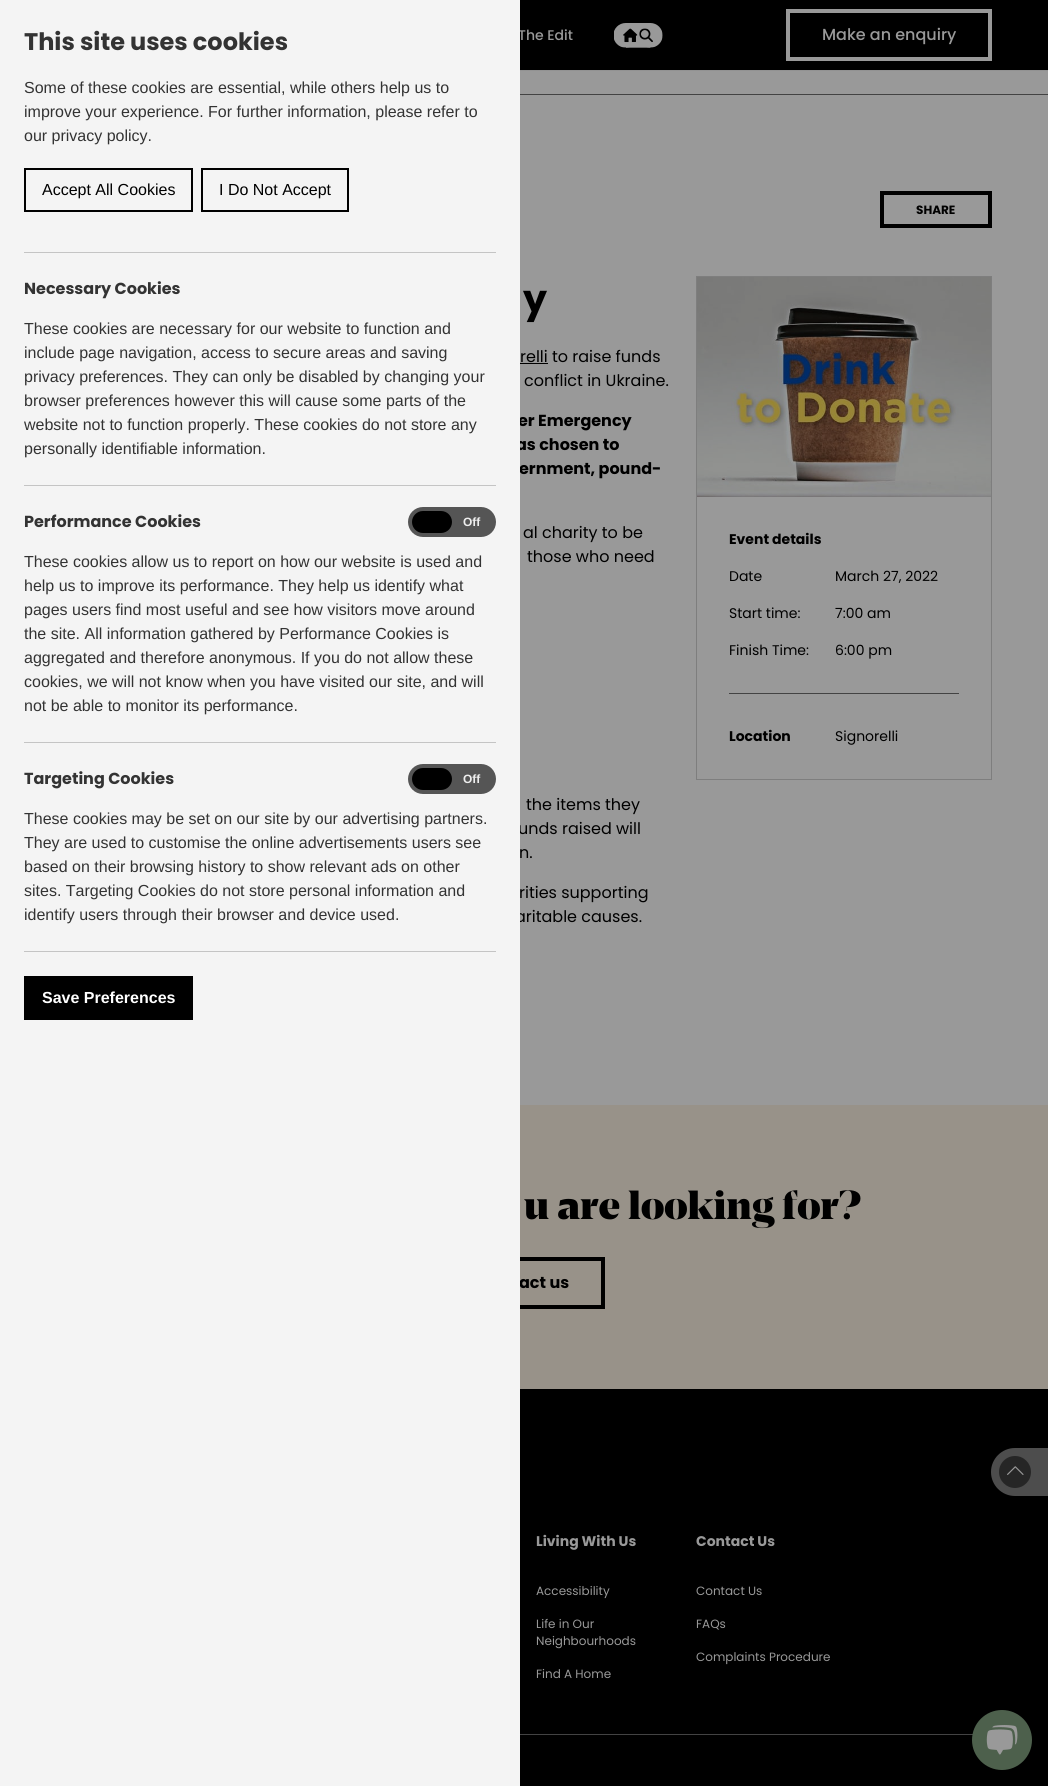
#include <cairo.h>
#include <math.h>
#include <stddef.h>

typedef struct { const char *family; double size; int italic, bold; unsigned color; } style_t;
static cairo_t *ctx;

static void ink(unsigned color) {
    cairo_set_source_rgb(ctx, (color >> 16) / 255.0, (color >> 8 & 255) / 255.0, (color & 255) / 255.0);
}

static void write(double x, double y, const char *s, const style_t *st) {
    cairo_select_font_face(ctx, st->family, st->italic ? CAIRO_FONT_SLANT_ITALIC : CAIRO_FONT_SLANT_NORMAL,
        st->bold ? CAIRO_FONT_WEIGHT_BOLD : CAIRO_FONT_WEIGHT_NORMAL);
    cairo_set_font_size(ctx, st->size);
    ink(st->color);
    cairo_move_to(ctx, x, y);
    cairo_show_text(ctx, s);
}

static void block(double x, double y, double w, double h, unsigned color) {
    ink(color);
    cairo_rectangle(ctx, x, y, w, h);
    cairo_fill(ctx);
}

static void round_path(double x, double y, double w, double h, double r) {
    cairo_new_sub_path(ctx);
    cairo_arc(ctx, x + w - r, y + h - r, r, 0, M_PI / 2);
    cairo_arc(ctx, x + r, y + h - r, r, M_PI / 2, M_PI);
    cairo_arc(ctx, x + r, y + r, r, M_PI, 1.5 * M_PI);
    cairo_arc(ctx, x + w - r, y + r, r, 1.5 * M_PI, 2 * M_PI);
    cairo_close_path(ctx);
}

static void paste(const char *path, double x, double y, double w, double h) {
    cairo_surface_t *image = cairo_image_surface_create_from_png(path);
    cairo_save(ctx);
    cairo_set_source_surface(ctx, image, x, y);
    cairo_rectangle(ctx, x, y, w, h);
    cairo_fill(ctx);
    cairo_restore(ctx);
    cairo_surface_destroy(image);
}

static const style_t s1 = {"Poppins Medium", 14, 0, 0, 0x999999};
static const style_t s2 = {"Poppins", 16, 0, 1, 0x000000};
static const style_t s3 = {"Poppins", 16, 0, 0, 0x000000};
static const style_t s4 = {"Poppins", 24, 0, 1, 0x333333};
static const style_t s5 = {"Liberation Sans", 16, 0, 0, 0x333333};
static const style_t s6 = {"Liberation Sans", 16, 0, 0, 0x000000};
static const style_t s7 = {"Poppins", 16, 0, 1, 0x333333};
static const style_t s8 = {"Liberation Sans", 12, 0, 1, 0xeeeeee};
static const style_t s9 = {"Liberation Sans", 16, 0, 1, 0xffffff};
static const style_t s10 = {"Poppins Medium", 16, 0, 0, 0x999999};
static const style_t s11 = {"Poppins", 12, 0, 1, 0x000000};
static const style_t s12 = {"Poppins", 38, 0, 1, 0x000000};
static const style_t s13 = {"Poppins", 14, 0, 1, 0x000000};
static const style_t s14 = {"Poppins", 14, 0, 0, 0x000000};
static const style_t s15 = {"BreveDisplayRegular", 39.5, 0, 0, 0x000000};
static const style_t s16 = {"Poppins", 14, 0, 1, 0x999999};
static const style_t s17 = {"Poppins", 12, 0, 0, 0x999999};

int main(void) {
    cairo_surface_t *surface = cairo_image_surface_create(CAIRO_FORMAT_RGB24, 1048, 1786);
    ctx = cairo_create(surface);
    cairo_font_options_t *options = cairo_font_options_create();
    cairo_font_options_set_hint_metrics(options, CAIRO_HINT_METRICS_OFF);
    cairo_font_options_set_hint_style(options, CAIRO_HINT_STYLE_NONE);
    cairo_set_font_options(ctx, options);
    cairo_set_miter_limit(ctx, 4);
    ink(0x999999);
    cairo_paint(ctx);
    block(520, 0, 528, 70, 0x000000);
    write(518, 40, "The Edit", &s1);
    write(518, 426, "er Emergency", &s2);
    write(516, 450, "as chosen to", &s2);
    write(519, 474, "ernment, pound-", &s2);
    write(518, 834, "unds raised will", &s3);
    write(519, 898, "rities supporting", &s3);
    write(515, 922, "aritable causes.", &s3);
    block(520, 1105, 528, 284, 0x989289);
    cairo_rectangle(ctx, 445, 1259, 158, 48);
    ink(0x000000);
    cairo_set_line_width(ctx, 4);
    cairo_stroke(ctx);
    write(519, 1288, "act us", &s2);
    block(0, 0, 520, 1786, 0xf4f4f4);
    write(24, 50, "This site uses cookies", &s4);
    write(24, 93, "Some of these cookies are essential, while others help us to", &s5);
    write(24, 117, "improve your experience. For further information, please refer to", &s5);
    write(24, 141, "our privacy policy.", &s5);
    cairo_rectangle(ctx, 25, 169, 167, 42);
    ink(0x000000);
    cairo_set_line_width(ctx, 2);
    cairo_stroke(ctx);
    write(42, 195, "Accept All Cookies", &s6);
    cairo_rectangle(ctx, 202, 169, 146, 42);
    cairo_stroke(ctx);
    write(219, 195, "I Do Not Accept", &s6);
    block(24, 252, 472, 1, 0xc4c4c4);
    write(24, 294, "Necessary Cookies", &s7);
    write(24, 334, "These cookies are necessary for our website to function and", &s5);
    write(24, 358, "include page navigation, access to secure areas and saving", &s5);
    write(24, 382, "privacy preferences. They can only be disabled by changing your", &s5);
    write(24, 406, "browser preferences however this will cause some parts of the", &s5);
    write(24, 430, "website not to function properly. These cookies do not store any", &s5);
    write(24, 454, "personally identifiable information.", &s5);
    block(24, 485, 472, 1, 0xc4c4c4);
    write(24, 527, "Performance Cookies", &s7);
    ink(0x555555);
    round_path(410, 509, 84, 26, 13);
    cairo_fill_preserve(ctx);
    cairo_set_line_width(ctx, 4);
    cairo_stroke(ctx);
    ink(0x000000);
    round_path(412, 511, 40, 22, 11);
    cairo_fill(ctx);
    write(463, 526, "Off", &s8);
    write(24, 567, "These cookies allow us to report on how our website is used and", &s5);
    write(24, 591, "help us to improve its performance. They help us identify what", &s5);
    write(24, 615, "pages users find most useful and see how visitors move around", &s5);
    write(24, 639, "the site. All information gathered by Performance Cookies is", &s5);
    write(24, 663, "aggregated and therefore anonymous. If you do not allow these", &s5);
    write(24, 687, "cookies, we will not know when you have visited our site, and will", &s5);
    write(24, 711, "not be able to monitor its performance.", &s5);
    block(24, 742, 472, 1, 0xc4c4c4);
    write(24, 784, "Targeting Cookies", &s7);
    ink(0x555555);
    round_path(410, 766, 84, 26, 13);
    cairo_fill_preserve(ctx);
    cairo_stroke(ctx);
    ink(0x000000);
    round_path(412, 768, 40, 22, 11);
    cairo_fill(ctx);
    write(463, 783, "Off", &s8);
    write(24, 824, "These cookies may be set on our site by our advertising partners.", &s5);
    write(24, 848, "They are used to customise the online advertisements users see", &s5);
    write(24, 872, "based on their browsing history to show relevant ads on other", &s5);
    write(24, 896, "sites. Targeting Cookies do not store personal information and", &s5);
    write(24, 920, "identify users through their browser and device used.", &s5);
    block(24, 951, 472, 1, 0xc4c4c4);
    block(24, 976, 169, 44, 0x000000);
    write(42, 1003, "Save Preferences", &s9);
    paste("pic1.png", 614, 23, 49, 25);
    cairo_rectangle(ctx, 788, 11, 202, 48);
    ink(0x999999);
    cairo_stroke(ctx);
    write(822, 40, "Make an enquiry", &s10);
    block(520, 70, 528, 1, 0x929292);
    block(520, 94, 528, 1, 0x434343);
    cairo_rectangle(ctx, 882, 193, 108, 33);
    ink(0x000000);
    cairo_stroke(ctx);
    write(916, 214, "SHARE", &s11);
    write(523, 312, "y", &s12);
    write(520, 362, "relli to raise funds", &s3);
    block(520, 363, 28, 1, 0x000000);
    write(524, 386, "conflict in Ukraine.", &s3);
    write(523, 538, "al charity to be", &s3);
    write(527, 562, "those who need", &s3);
    write(526, 810, "the items they", &s3);
    write(519, 858, "n.", &s3);
    cairo_rectangle(ctx, 696.5, 276.5, 295, 503);
    ink(0x7e7e7e);
    cairo_set_line_width(ctx, 1);
    cairo_stroke(ctx);
    paste("pic2.png", 697, 277, 294, 220);
    write(729, 544, "Event details", &s13);
    write(729, 581, "Date", &s14);
    write(835, 581, "March 27, 2022", &s14);
    write(729, 618, "Start time:", &s14);
    write(835, 618, "7:00 am", &s14);
    write(729, 655, "Finish Time:", &s14);
    write(835, 655, "6:00 pm", &s14);
    block(729, 693, 230, 1, 0x434343);
    write(729, 741, "Location", &s13);
    write(835, 741, "Signorelli", &s14);
    write(524, 1219, "u are looking for?", &s15);
    block(520, 1389, 528, 397, 0x000000);
    paste("pic3.png", 991, 1448, 57, 48);
    write(536, 1546, "Living With Us", &s16);
    write(536, 1595, "Accessibility", &s17);
    write(536, 1628, "Life in Our", &s17);
    write(536, 1645, "Neighbourhoods", &s17);
    write(536, 1678, "Find A Home", &s17);
    write(696, 1546, "Contact Us", &s16);
    write(696, 1595, "Contact Us", &s17);
    write(696, 1628, "FAQs", &s17);
    write(696, 1661, "Complaints Procedure", &s17);
    block(520, 1734, 453, 1, 0x434343);
    ink(0x4d604c);
    cairo_new_path(ctx);
    cairo_arc(ctx, 1002, 1740, 30, 0, 2 * M_PI);
    cairo_fill(ctx);
    paste("pic4.png", 986, 1725, 32, 30);
    cairo_surface_write_to_png(surface, "screenshot.png");
    cairo_font_options_destroy(options);
    cairo_destroy(ctx);
    cairo_surface_destroy(surface);
    return 0;
}
